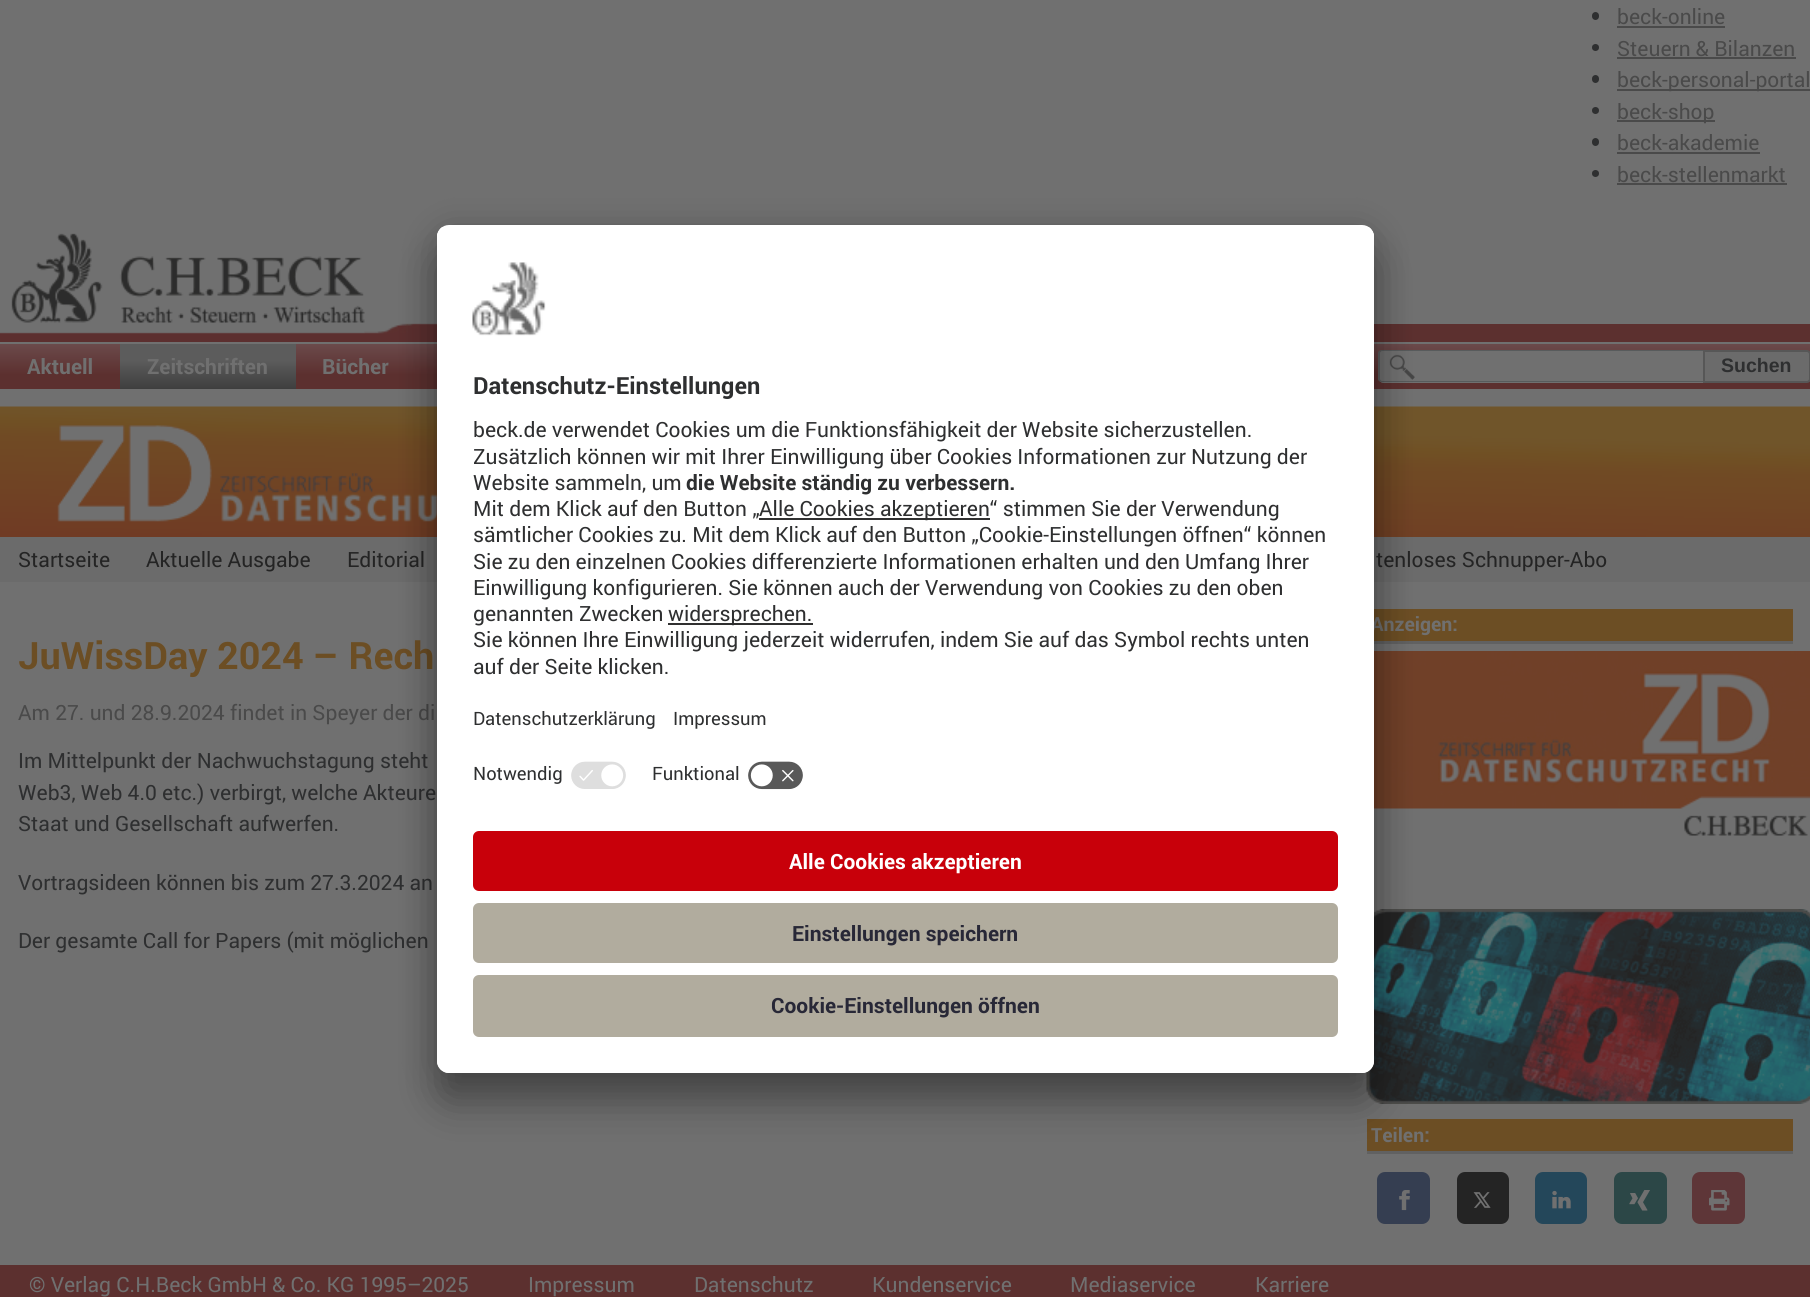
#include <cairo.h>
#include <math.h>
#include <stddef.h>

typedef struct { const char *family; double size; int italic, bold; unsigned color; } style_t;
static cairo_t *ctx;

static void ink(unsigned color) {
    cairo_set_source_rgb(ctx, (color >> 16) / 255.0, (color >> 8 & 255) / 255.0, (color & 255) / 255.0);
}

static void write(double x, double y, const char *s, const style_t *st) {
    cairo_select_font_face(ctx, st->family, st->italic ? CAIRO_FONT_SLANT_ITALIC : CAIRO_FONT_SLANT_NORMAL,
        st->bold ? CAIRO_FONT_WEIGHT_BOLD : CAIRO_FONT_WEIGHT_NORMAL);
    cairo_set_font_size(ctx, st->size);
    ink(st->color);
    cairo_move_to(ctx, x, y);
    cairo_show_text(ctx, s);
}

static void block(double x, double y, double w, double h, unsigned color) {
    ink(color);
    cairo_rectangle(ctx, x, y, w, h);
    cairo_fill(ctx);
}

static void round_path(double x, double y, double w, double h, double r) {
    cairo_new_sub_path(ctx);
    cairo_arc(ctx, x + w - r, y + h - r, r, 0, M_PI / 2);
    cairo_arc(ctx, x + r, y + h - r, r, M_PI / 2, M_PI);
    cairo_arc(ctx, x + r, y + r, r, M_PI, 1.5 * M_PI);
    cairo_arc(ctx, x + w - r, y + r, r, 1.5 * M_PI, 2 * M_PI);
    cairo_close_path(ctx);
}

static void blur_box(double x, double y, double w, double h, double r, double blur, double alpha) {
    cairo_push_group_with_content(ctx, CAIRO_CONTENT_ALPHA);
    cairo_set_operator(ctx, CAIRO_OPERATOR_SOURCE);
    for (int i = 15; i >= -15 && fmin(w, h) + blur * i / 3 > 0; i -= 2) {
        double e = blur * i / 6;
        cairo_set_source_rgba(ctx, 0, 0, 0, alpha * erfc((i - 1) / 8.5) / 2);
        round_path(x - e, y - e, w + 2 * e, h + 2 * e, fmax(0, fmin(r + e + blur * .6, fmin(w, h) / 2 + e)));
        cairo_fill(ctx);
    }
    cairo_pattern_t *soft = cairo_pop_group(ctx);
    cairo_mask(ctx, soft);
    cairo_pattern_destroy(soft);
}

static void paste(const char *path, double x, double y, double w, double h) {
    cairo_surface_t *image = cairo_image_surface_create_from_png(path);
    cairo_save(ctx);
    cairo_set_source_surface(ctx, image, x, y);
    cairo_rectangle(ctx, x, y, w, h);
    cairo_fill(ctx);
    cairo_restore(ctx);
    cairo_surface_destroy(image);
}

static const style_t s1 = {"Roboto", 21, 0, 0, 0x4a4a4a};
static const style_t s2 = {"Roboto", 21, 0, 1, 0x707070};
static const style_t s3 = {"Liberation Sans", 19.5, 0, 1, 0x2e2f30};
static const style_t s4 = {"Roboto", 21, 0, 0, 0x242424};
static const style_t s5 = {"Roboto", 37.75, 0, 1, 0x6c4e24};
static const style_t s6 = {"Roboto", 21, 0, 0, 0x2e2f30};
static const style_t s7 = {"Roboto", 19.5, 0, 1, 0x707070};
static const style_t s8 = {"Roboto", 21, 0, 0, 0x707070};
static const style_t s9 = {"Roboto", 23.6, 0, 1, 0x2e2f30};
static const style_t s10 = {"Roboto", 21, 0, 1, 0x2e2f30};
static const style_t s11 = {"Roboto", 18.4, 0, 0, 0x2e2f30};
static const style_t s12 = {"Roboto", 21, 0, 1, 0xffffff};
static const style_t s13 = {"Roboto", 21, 0, 1, 0x282837};

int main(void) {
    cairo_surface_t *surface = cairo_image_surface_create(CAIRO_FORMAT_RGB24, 1810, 1297);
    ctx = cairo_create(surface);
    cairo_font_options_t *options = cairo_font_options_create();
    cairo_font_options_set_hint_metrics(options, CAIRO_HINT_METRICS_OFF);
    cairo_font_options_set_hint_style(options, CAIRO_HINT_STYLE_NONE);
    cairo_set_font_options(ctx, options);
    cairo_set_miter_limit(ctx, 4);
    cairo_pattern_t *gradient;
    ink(0x707070);
    cairo_paint(ctx);
    ink(0x2e2f30);
    round_path(1592, 12, 7, 8, 3.5);
    cairo_fill(ctx);
    write(1617, 24, "beck-online", &s1);
    block(1617, 26, 108, 2, 0x4a4a4a);
    ink(0x2e2f30);
    cairo_new_path(ctx);
    cairo_arc(ctx, 1595.5, 47.5, 3.5, 0, 2 * M_PI);
    cairo_fill(ctx);
    write(1617, 56, "Steuern & Bilanzen", &s1);
    block(1617, 57, 179, 2, 0x4a4a4a);
    ink(0x2e2f30);
    round_path(1592, 75, 7, 8, 3.5);
    cairo_fill(ctx);
    block(1617, 89, 193, 2, 0x4a4a4a);
    write(1617, 87, "beck-personal-portal", &s1);
    ink(0x2e2f30);
    cairo_new_path(ctx);
    cairo_arc(ctx, 1595.5, 110.5, 3.5, 0, 2 * M_PI);
    cairo_fill(ctx);
    block(1617, 120, 98, 2, 0x4a4a4a);
    write(1617, 119, "beck-shop", &s1);
    ink(0x2e2f30);
    round_path(1592, 138, 7, 8, 3.5);
    cairo_fill(ctx);
    write(1617, 150, "beck-akademie", &s1);
    block(1617, 152, 143, 2, 0x4a4a4a);
    ink(0x2e2f30);
    cairo_new_path(ctx);
    cairo_arc(ctx, 1595.5, 173.5, 3.5, 0, 2 * M_PI);
    cairo_fill(ctx);
    write(1617, 182, "beck-stellenmarkt", &s1);
    block(1617, 183, 170, 2, 0x4a4a4a);
    block(1374, 324, 436, 18, 0x5c302f);
    gradient = cairo_pattern_create_linear(905, 343, 905, 389);
    cairo_pattern_add_color_stop_rgba(gradient, 0, 0.42, 0.29, 0.294, 1);
    cairo_pattern_add_color_stop_rgba(gradient, 0.68, 0.361, 0.188, 0.184, 1);
    cairo_pattern_add_color_stop_rgba(gradient, 1, 0.361, 0.188, 0.184, 1);
    cairo_set_source(ctx, gradient);
    cairo_pattern_destroy(gradient);
    cairo_rectangle(ctx, 1374, 344, 436, 45);
    cairo_fill(ctx);
    gradient = cairo_pattern_create_linear(60, 344, 60, 389);
    cairo_pattern_add_color_stop_rgba(gradient, 0, 0.42, 0.29, 0.294, 1);
    cairo_pattern_add_color_stop_rgba(gradient, 0.68, 0.361, 0.188, 0.184, 1);
    cairo_pattern_add_color_stop_rgba(gradient, 1, 0.361, 0.188, 0.184, 1);
    cairo_set_source(ctx, gradient);
    cairo_pattern_destroy(gradient);
    cairo_rectangle(ctx, 0, 344, 120, 45);
    cairo_fill(ctx);
    write(27, 374, "Aktuell", &s2);
    gradient = cairo_pattern_create_linear(208, 344, 208, 389);
    cairo_pattern_add_color_stop_rgba(gradient, 0.36, 0.361, 0.361, 0.361, 1);
    cairo_pattern_add_color_stop_rgba(gradient, 1, 0.243, 0.243, 0.243, 1);
    cairo_set_source(ctx, gradient);
    cairo_pattern_destroy(gradient);
    cairo_rectangle(ctx, 120, 344, 176, 45);
    cairo_fill(ctx);
    write(147, 374, "Zeitschriften", &s2);
    gradient = cairo_pattern_create_linear(356, 344, 356, 389);
    cairo_pattern_add_color_stop_rgba(gradient, 0, 0.42, 0.29, 0.294, 1);
    cairo_pattern_add_color_stop_rgba(gradient, 0.68, 0.361, 0.188, 0.184, 1);
    cairo_pattern_add_color_stop_rgba(gradient, 1, 0.361, 0.188, 0.184, 1);
    cairo_set_source(ctx, gradient);
    cairo_pattern_destroy(gradient);
    cairo_rectangle(ctx, 296, 344, 120, 45);
    cairo_fill(ctx);
    write(322, 374, "Bücher", &s2);
    gradient = cairo_pattern_create_linear(494, 344, 494, 389);
    cairo_pattern_add_color_stop_rgba(gradient, 0, 0.42, 0.29, 0.294, 1);
    cairo_pattern_add_color_stop_rgba(gradient, 0.68, 0.361, 0.188, 0.184, 1);
    cairo_pattern_add_color_stop_rgba(gradient, 1, 0.361, 0.188, 0.184, 1);
    cairo_set_source(ctx, gradient);
    cairo_pattern_destroy(gradient);
    cairo_rectangle(ctx, 416, 344, 21, 45);
    cairo_fill(ctx);
    paste("pic1.png", 0, 233, 437, 109);
    ink(0x707070);
    cairo_new_path(ctx);
    cairo_move_to(ctx, 1383, 350);
    cairo_line_to(ctx, 1704, 350);
    cairo_line_to(ctx, 1704, 383);
    cairo_line_to(ctx, 1383, 383);
    cairo_curve_to(ctx, 1381, 383, 1379, 381, 1379, 379);
    cairo_line_to(ctx, 1379, 354);
    cairo_curve_to(ctx, 1379, 352, 1381, 350, 1383, 350);
    cairo_close_path(ctx);
    cairo_fill(ctx);
    paste("pic2.png", 1389, 354, 26, 26);
    ink(0x585b5c);
    cairo_set_fill_rule(ctx, CAIRO_FILL_RULE_EVEN_ODD);
    cairo_new_path(ctx);
    cairo_move_to(ctx, 1382, 350);
    cairo_line_to(ctx, 1704, 350);
    cairo_line_to(ctx, 1704, 382);
    cairo_line_to(ctx, 1382, 382);
    cairo_curve_to(ctx, 1380, 382, 1378, 381, 1378, 379);
    cairo_line_to(ctx, 1378, 353);
    cairo_curve_to(ctx, 1378, 351, 1380, 350, 1382, 350);
    cairo_close_path(ctx);
    cairo_move_to(ctx, 1382, 351);
    cairo_line_to(ctx, 1704, 351);
    cairo_line_to(ctx, 1704, 381);
    cairo_line_to(ctx, 1382, 381);
    cairo_curve_to(ctx, 1381, 381, 1380, 380, 1380, 379);
    cairo_line_to(ctx, 1380, 353);
    cairo_curve_to(ctx, 1380, 352, 1381, 351, 1382, 351);
    cairo_close_path(ctx);
    cairo_fill(ctx);
    ink(0x6b6b6b);
    cairo_new_path(ctx);
    cairo_move_to(ctx, 1704, 351);
    cairo_line_to(ctx, 1807, 351);
    cairo_curve_to(ctx, 1808.5, 351, 1810, 352.5, 1810, 354);
    cairo_line_to(ctx, 1810, 379);
    cairo_curve_to(ctx, 1810, 380.5, 1808.5, 382, 1807, 382);
    cairo_line_to(ctx, 1704, 382);
    cairo_close_path(ctx);
    cairo_fill_preserve(ctx);
    ink(0x575757);
    cairo_stroke(ctx);
    write(1721, 372, "Suchen", &s3);
    paste("pic3.png", 0, 406, 1810, 131);
    block(0, 537, 1810, 45, 0x6b6b6b);
    write(18, 567, "Startseite", &s4);
    write(146, 567, "Aktuelle Ausgabe", &s4);
    write(347, 567, "Editorial", &s4);
    write(1376, 567, "tenloses Schnupper-Abo", &s4);
    write(18, 669, "JuWissDay 2024 – Rech", &s5);
    write(18, 720, "Am 27. und 28.9.2024 findet in Speyer der di", &s1);
    write(18, 768, "Im Mittelpunkt der Nachwuchstagung steht", &s6);
    write(18, 800, "Web3, Web 4.0 etc.) verbirgt, welche Akteure", &s6);
    write(18, 831, "Staat und Gesellschaft aufwerfen.", &s6);
    write(18, 890, "Vortragsideen können bis zum 27.3.2024 an", &s6);
    write(18, 948, "Der gesamte Call for Papers (mit möglichen", &s6);
    block(1374, 609, 419, 32, 0x6c4e24);
    block(1367, 641, 426, 3, 0x616161);
    write(1371, 631, "Anzeigen:", &s7);
    paste("pic4.png", 1374, 651, 436, 185);
    paste("pic5.png", 1366, 909, 444, 195);
    block(1367, 1119, 426, 32, 0x6c4e24);
    block(1367, 1151, 426, 3, 0x616161);
    write(1371, 1142, "Teilen:", &s7);
    ink(0x353e51);
    round_path(1377, 1172, 53, 52, 8);
    cairo_fill(ctx);
    paste("pic6.png", 1399, 1190, 11, 21);
    ink(0x242424);
    round_path(1457, 1172, 52, 52, 8);
    cairo_fill(ctx);
    paste("pic7.png", 1473, 1192, 18, 16);
    ink(0x24475a);
    round_path(1535, 1172, 52, 52, 8);
    cairo_fill(ctx);
    paste("pic8.png", 1552, 1190, 19, 19);
    ink(0x2c4747);
    round_path(1614, 1172, 53, 52, 8);
    cairo_fill(ctx);
    paste("pic9.png", 1629, 1190, 21, 21);
    ink(0x5e3638);
    round_path(1692, 1172, 53, 52, 8);
    cairo_fill(ctx);
    paste("pic10.png", 1709, 1190, 21, 21);
    block(0, 1265, 1810, 32, 0x5c302f);
    write(29, 1292, "© Verlag C.H.Beck GmbH & Co. KG 1995–2025", &s8);
    write(528, 1292, "Impressum", &s8);
    write(694, 1292, "Datenschutz", &s8);
    write(872, 1292, "Kundenservice", &s8);
    write(1070, 1292, "Mediaservice", &s8);
    write(1255, 1292, "Karriere", &s8);
    ink(0x000000);
    blur_box(437, 255, 937, 848, 12, 21, 0.3);
    blur_box(437, 233, 937, 847, 12, 19.5, 0.22);
    ink(0xffffff);
    round_path(437, 225, 937, 848, 12);
    cairo_fill(ctx);
    cairo_save(ctx);
    cairo_set_fill_rule(ctx, CAIRO_FILL_RULE_WINDING);
    round_path(437, 225, 937, 848, 12);
    cairo_clip(ctx);
    cairo_new_path(ctx);
    cairo_move_to(ctx, 449, 225);
    cairo_line_to(ctx, 1362, 225);
    cairo_curve_to(ctx, 1368.5, 225, 1374, 230.5, 1374, 237);
    cairo_line_to(ctx, 1374, 813);
    cairo_line_to(ctx, 437, 813);
    cairo_line_to(ctx, 437, 237);
    cairo_curve_to(ctx, 437, 230.5, 442.5, 225, 449, 225);
    cairo_close_path(ctx);
    cairo_clip(ctx);
    block(437, 227, 937, 586, 0xffffff);
    block(437, 227, 937, 526, 0xffffff);
    cairo_restore(ctx);
    paste("pic11.png", 472, 262, 74, 74);
    write(473, 394, "Datenschutz-Einstellungen", &s9);
    write(473, 437, "beck.de verwendet Cookies um die Funktionsfähigkeit der Website sicherzustellen.", &s6);
    write(473, 464, "Zusätzlich können wir mit Ihrer Einwilligung über Cookies Informationen zur Nutzung der", &s6);
    write(473, 490, "Website sammeln, um", &s6);
    write(686, 490, "die Website ständig zu verbessern.", &s10);
    write(473, 516, "Mit dem Klick auf den Button „", &s6);
    block(759, 518, 231, 2, 0x303030);
    write(759, 516, "Alle Cookies akzeptieren“ stimmen Sie der Verwendung", &s6);
    write(473, 542, "sämtlicher Cookies zu. Mit dem Klick auf den Button „Cookie-Einstellungen öffnen“ können", &s6);
    write(473, 569, "Sie zu den einzelnen Cookies differenzierte Informationen erhalten und den Umfang Ihrer", &s6);
    write(473, 595, "Einwilligung konfigurieren. Sie können auch der Verwendung von Cookies zu den oben", &s6);
    write(473, 621, "genannten Zwecken", &s6);
    block(668, 623, 145, 2, 0x303030);
    write(668, 621, "widersprechen.", &s6);
    write(473, 647, "Sie können Ihre Einwilligung jederzeit widerrufen, indem Sie auf das Symbol rechts unten", &s6);
    write(473, 674, "auf der Seite klicken.", &s6);
    write(473, 725, "Datenschutzerklärung", &s11);
    write(673, 725, "Impressum", &s11);
    write(473, 780, "Notwendig", &s11);
    paste("pic12.png", 571, 761, 55, 28);
    write(652, 780, "Funktional", &s11);
    paste("pic13.png", 748, 761, 55, 29);
    ink(0xffffff);
    cairo_new_path(ctx);
    cairo_move_to(ctx, 437, 813);
    cairo_line_to(ctx, 1374, 813);
    cairo_line_to(ctx, 1374, 1061);
    cairo_curve_to(ctx, 1374, 1067.5, 1368.5, 1073, 1362, 1073);
    cairo_line_to(ctx, 449, 1073);
    cairo_curve_to(ctx, 442.5, 1073, 437, 1067.5, 437, 1061);
    cairo_close_path(ctx);
    cairo_fill(ctx);
    ink(0xc8000a);
    round_path(473, 831, 865, 60, 6);
    cairo_fill(ctx);
    write(789, 869, "Alle Cookies akzeptieren", &s12);
    ink(0xb1ac9e);
    round_path(473, 903, 865, 60, 6);
    cairo_fill(ctx);
    write(792, 941, "Einstellungen speichern", &s13);
    ink(0xb1ac9e);
    round_path(473, 975, 865, 62, 6);
    cairo_fill(ctx);
    write(771, 1013, "Cookie-Einstellungen öffnen", &s13);
    cairo_surface_write_to_png(surface, "screenshot.png");
    cairo_font_options_destroy(options);
    cairo_destroy(ctx);
    cairo_surface_destroy(surface);
    return 0;
}
